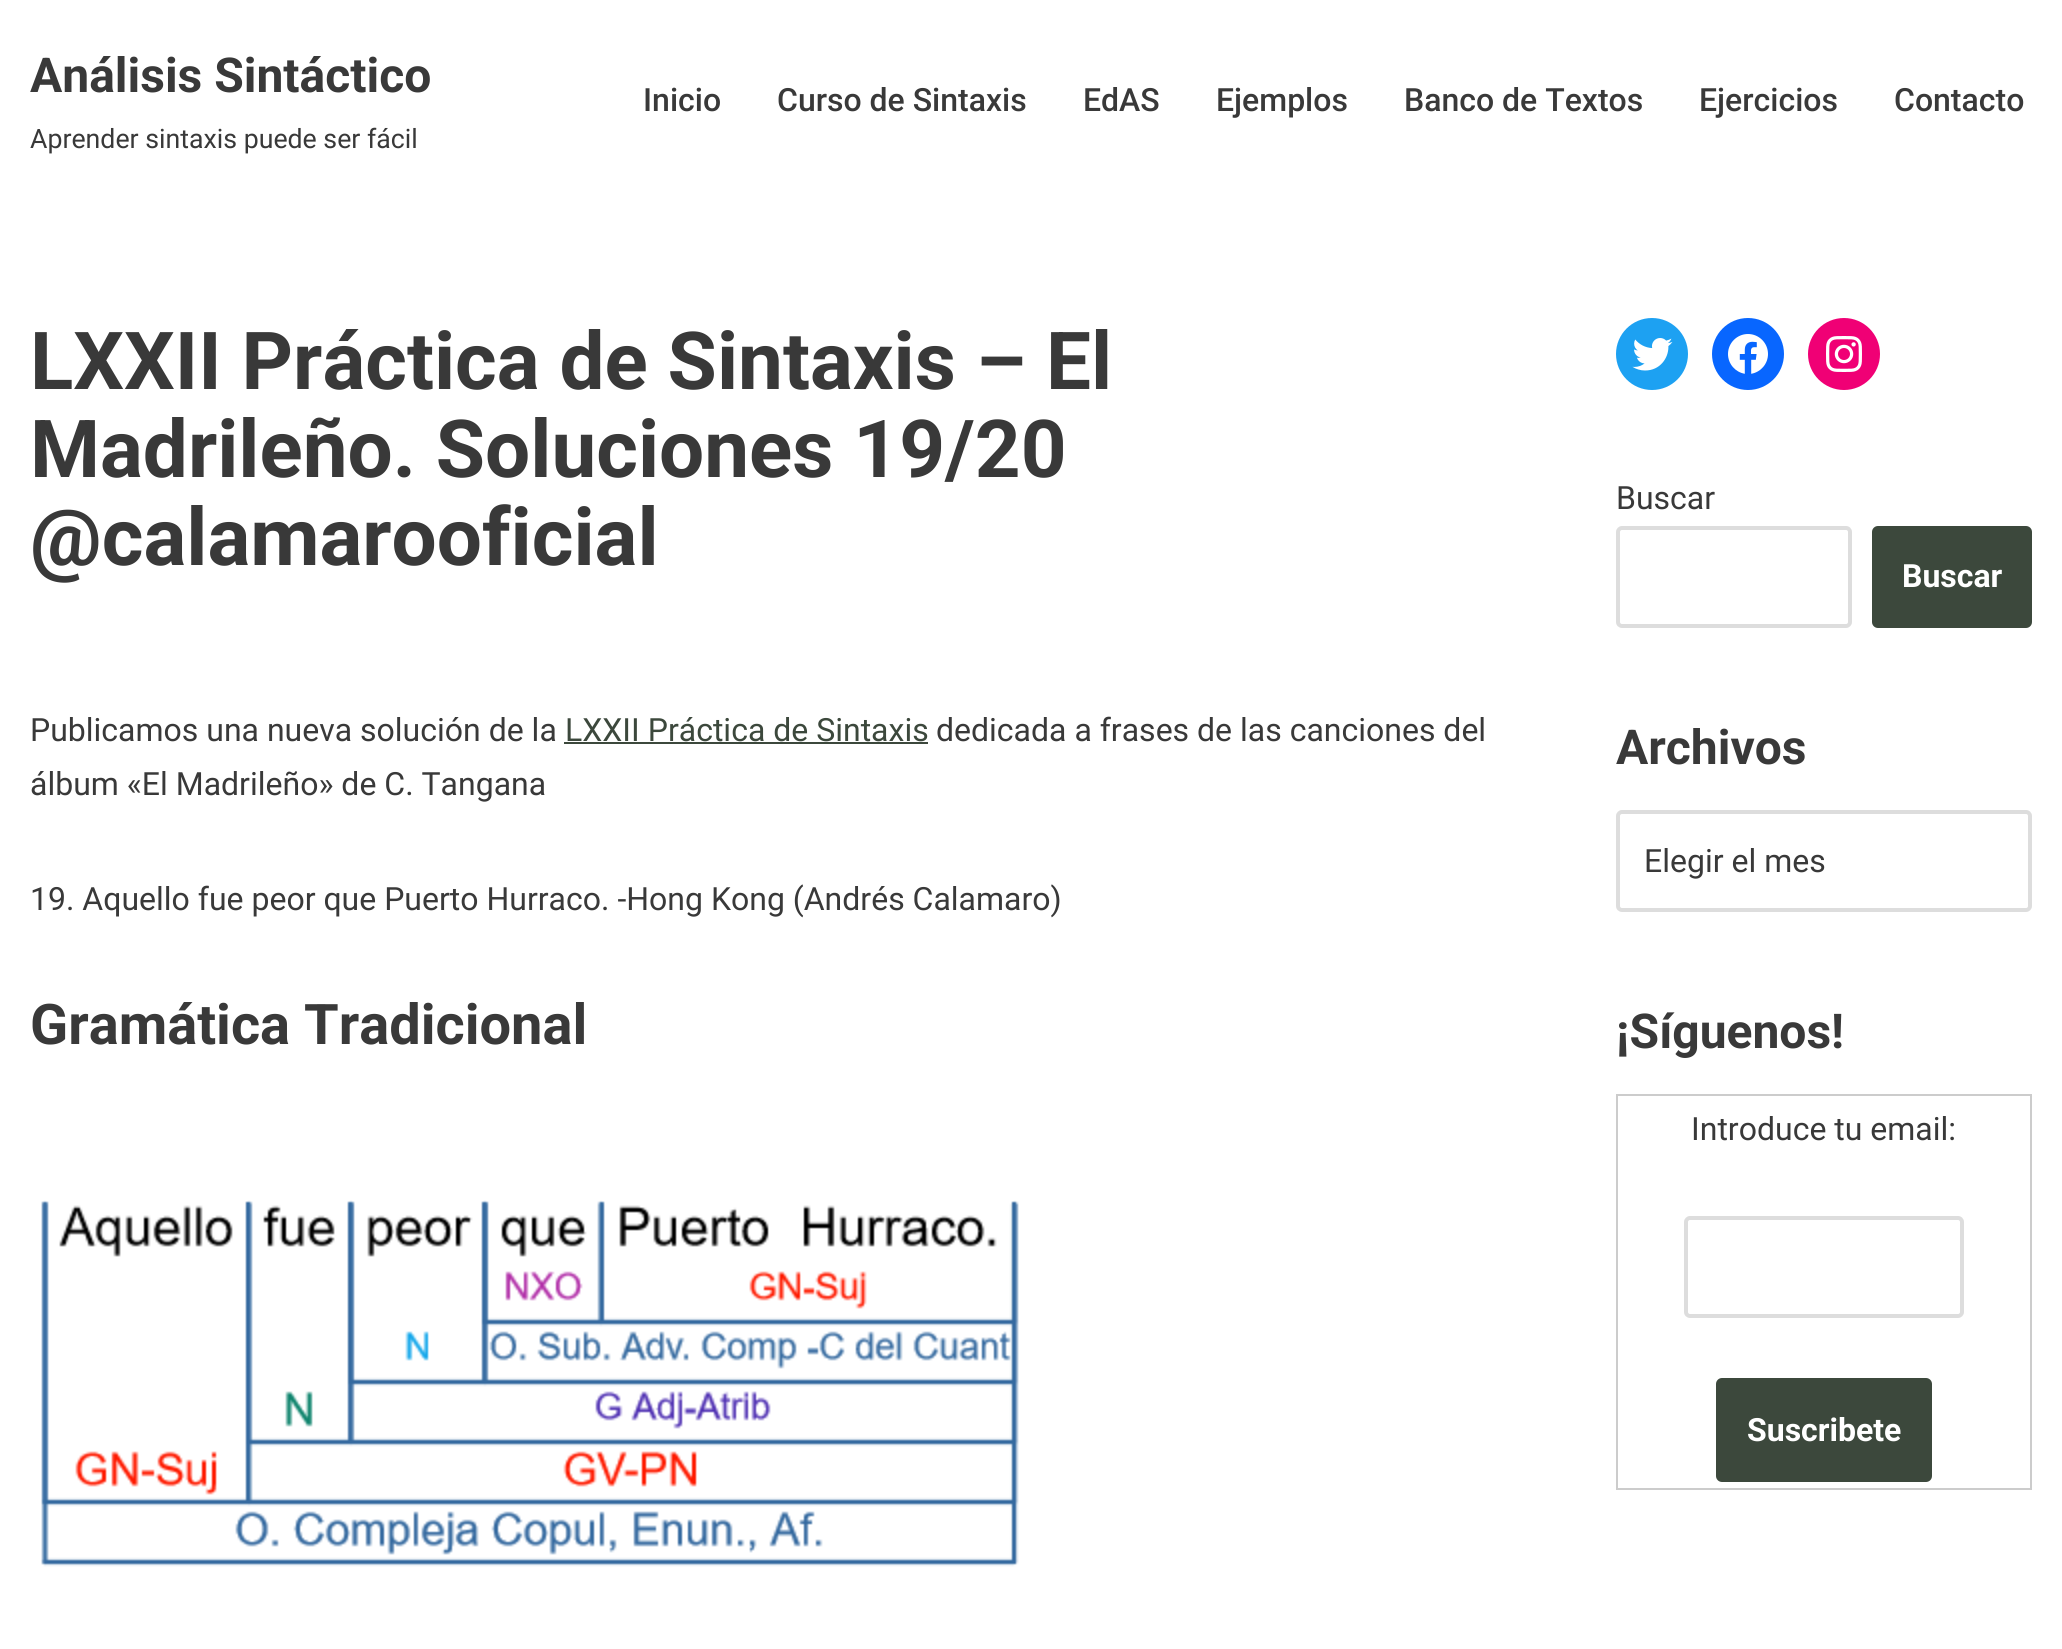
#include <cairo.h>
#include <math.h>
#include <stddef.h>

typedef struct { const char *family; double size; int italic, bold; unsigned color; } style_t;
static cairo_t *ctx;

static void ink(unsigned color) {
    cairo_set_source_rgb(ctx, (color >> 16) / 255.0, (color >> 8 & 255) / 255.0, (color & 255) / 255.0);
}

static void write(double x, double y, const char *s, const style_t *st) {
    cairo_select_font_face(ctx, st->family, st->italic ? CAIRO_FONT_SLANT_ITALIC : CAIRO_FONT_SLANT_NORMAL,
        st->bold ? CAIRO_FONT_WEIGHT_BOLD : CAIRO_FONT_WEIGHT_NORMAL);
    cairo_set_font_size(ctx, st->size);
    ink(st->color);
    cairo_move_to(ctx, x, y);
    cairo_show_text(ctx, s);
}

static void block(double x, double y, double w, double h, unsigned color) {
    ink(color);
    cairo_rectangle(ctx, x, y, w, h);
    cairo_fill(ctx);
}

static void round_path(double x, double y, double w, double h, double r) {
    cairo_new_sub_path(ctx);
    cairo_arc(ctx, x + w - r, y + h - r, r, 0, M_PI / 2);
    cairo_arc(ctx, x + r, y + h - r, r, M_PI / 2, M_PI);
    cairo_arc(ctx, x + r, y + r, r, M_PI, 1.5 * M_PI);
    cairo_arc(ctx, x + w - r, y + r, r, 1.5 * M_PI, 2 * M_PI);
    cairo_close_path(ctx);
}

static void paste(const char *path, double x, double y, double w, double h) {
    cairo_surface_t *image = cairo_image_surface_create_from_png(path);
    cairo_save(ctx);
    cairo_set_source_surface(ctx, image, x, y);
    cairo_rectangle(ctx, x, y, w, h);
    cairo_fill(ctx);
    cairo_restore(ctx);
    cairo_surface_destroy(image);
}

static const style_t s1 = {"Roboto", 48, 0, 1, 0x393939};
static const style_t s2 = {"Roboto", 26.7, 0, 0, 0x393939};
static const style_t s3 = {"Roboto Medium", 32, 0, 0, 0x393939};
static const style_t s4 = {"Roboto", 80, 0, 1, 0x393939};
static const style_t s5 = {"Roboto", 32, 0, 0, 0x393939};
static const style_t s6 = {"Roboto", 32, 0, 0, 0x3c483c};
static const style_t s7 = {"Roboto", 56, 0, 1, 0x393939};
static const style_t s8 = {"Roboto", 32, 0, 1, 0xffffff};

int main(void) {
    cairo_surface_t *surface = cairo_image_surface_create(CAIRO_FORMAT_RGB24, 2062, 1649);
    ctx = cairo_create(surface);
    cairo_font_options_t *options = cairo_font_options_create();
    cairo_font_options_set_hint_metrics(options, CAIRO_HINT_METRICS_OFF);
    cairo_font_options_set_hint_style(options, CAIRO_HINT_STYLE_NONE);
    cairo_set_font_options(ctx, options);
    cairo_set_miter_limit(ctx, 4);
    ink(0xffffff);
    cairo_paint(ctx);
    write(30, 92, "Análisis Sintáctico", &s1);
    write(30, 148, "Aprender sintaxis puede ser fácil", &s2);
    write(643, 111, "Inicio", &s3);
    write(777, 111, "Curso de Sintaxis", &s3);
    write(1083, 111, "EdAS", &s3);
    write(1216, 111, "Ejemplos", &s3);
    write(1404, 111, "Banco de Textos", &s3);
    write(1699, 111, "Ejercicios", &s3);
    write(1894, 111, "Contacto", &s3);
    write(30, 389, "LXXII Práctica de Sintaxis – El", &s4);
    write(30, 477, "Madrileño. Soluciones 19/20", &s4);
    write(30, 565, "@calamarooficial", &s4);
    write(30, 741, "Publicamos una nueva solución de la", &s5);
    write(565, 741, "LXXII Práctica de Sintaxis", &s6);
    block(564, 742, 364, 2, 0x3c483c);
    write(936, 741, "dedicada a frases de las canciones del", &s5);
    write(30, 795, "álbum «El Madrileño» de C. Tangana", &s5);
    write(30, 910, "19. Aquello fue peor que Puerto Hurraco. -Hong Kong (Andrés Calamaro)", &s5);
    write(30, 1044, "Gramática Tradicional", &s7);
    paste("pic1.png", 41, 1200, 978, 367);
    ink(0x1da1f2);
    cairo_arc(ctx, 1652, 354, 36, 0, 2 * M_PI);
    cairo_fill(ctx);
    paste("pic2.png", 1632, 338, 41, 33);
    ink(0x0866ff);
    cairo_arc(ctx, 1748, 354, 36, 0, 2 * M_PI);
    cairo_fill(ctx);
    paste("pic3.png", 1728, 334, 40, 40);
    ink(0xf00075);
    cairo_arc(ctx, 1844, 354, 36, 0, 2 * M_PI);
    cairo_fill(ctx);
    paste("pic4.png", 1826, 336, 36, 36);
    write(1616, 509, "Buscar", &s5);
    round_path(1618, 528, 232, 98, 4);
    ink(0xdddddd);
    cairo_set_line_width(ctx, 4);
    cairo_stroke(ctx);
    ink(0x3c483c);
    round_path(1872, 526, 160, 102, 6);
    cairo_fill(ctx);
    write(1902, 587, "Buscar", &s8);
    write(1616, 764, "Archivos", &s1);
    round_path(1618, 812, 412, 98, 4);
    ink(0xdddddd);
    cairo_stroke(ctx);
    write(1644, 872, "Elegir el mes", &s5);
    write(1616, 1048, "¡Síguenos!", &s1);
    cairo_rectangle(ctx, 1617, 1095, 414, 394);
    ink(0xcccccc);
    cairo_set_line_width(ctx, 2);
    cairo_stroke(ctx);
    write(1691, 1140, "Introduce tu email:", &s5);
    round_path(1686, 1218, 276, 98, 4);
    ink(0xdddddd);
    cairo_set_line_width(ctx, 4);
    cairo_stroke(ctx);
    ink(0x3c483c);
    round_path(1716, 1378, 216, 104, 6);
    cairo_fill(ctx);
    write(1747, 1441, "Suscribete", &s8);
    cairo_surface_write_to_png(surface, "screenshot.png");
    cairo_font_options_destroy(options);
    cairo_destroy(ctx);
    cairo_surface_destroy(surface);
    return 0;
}
